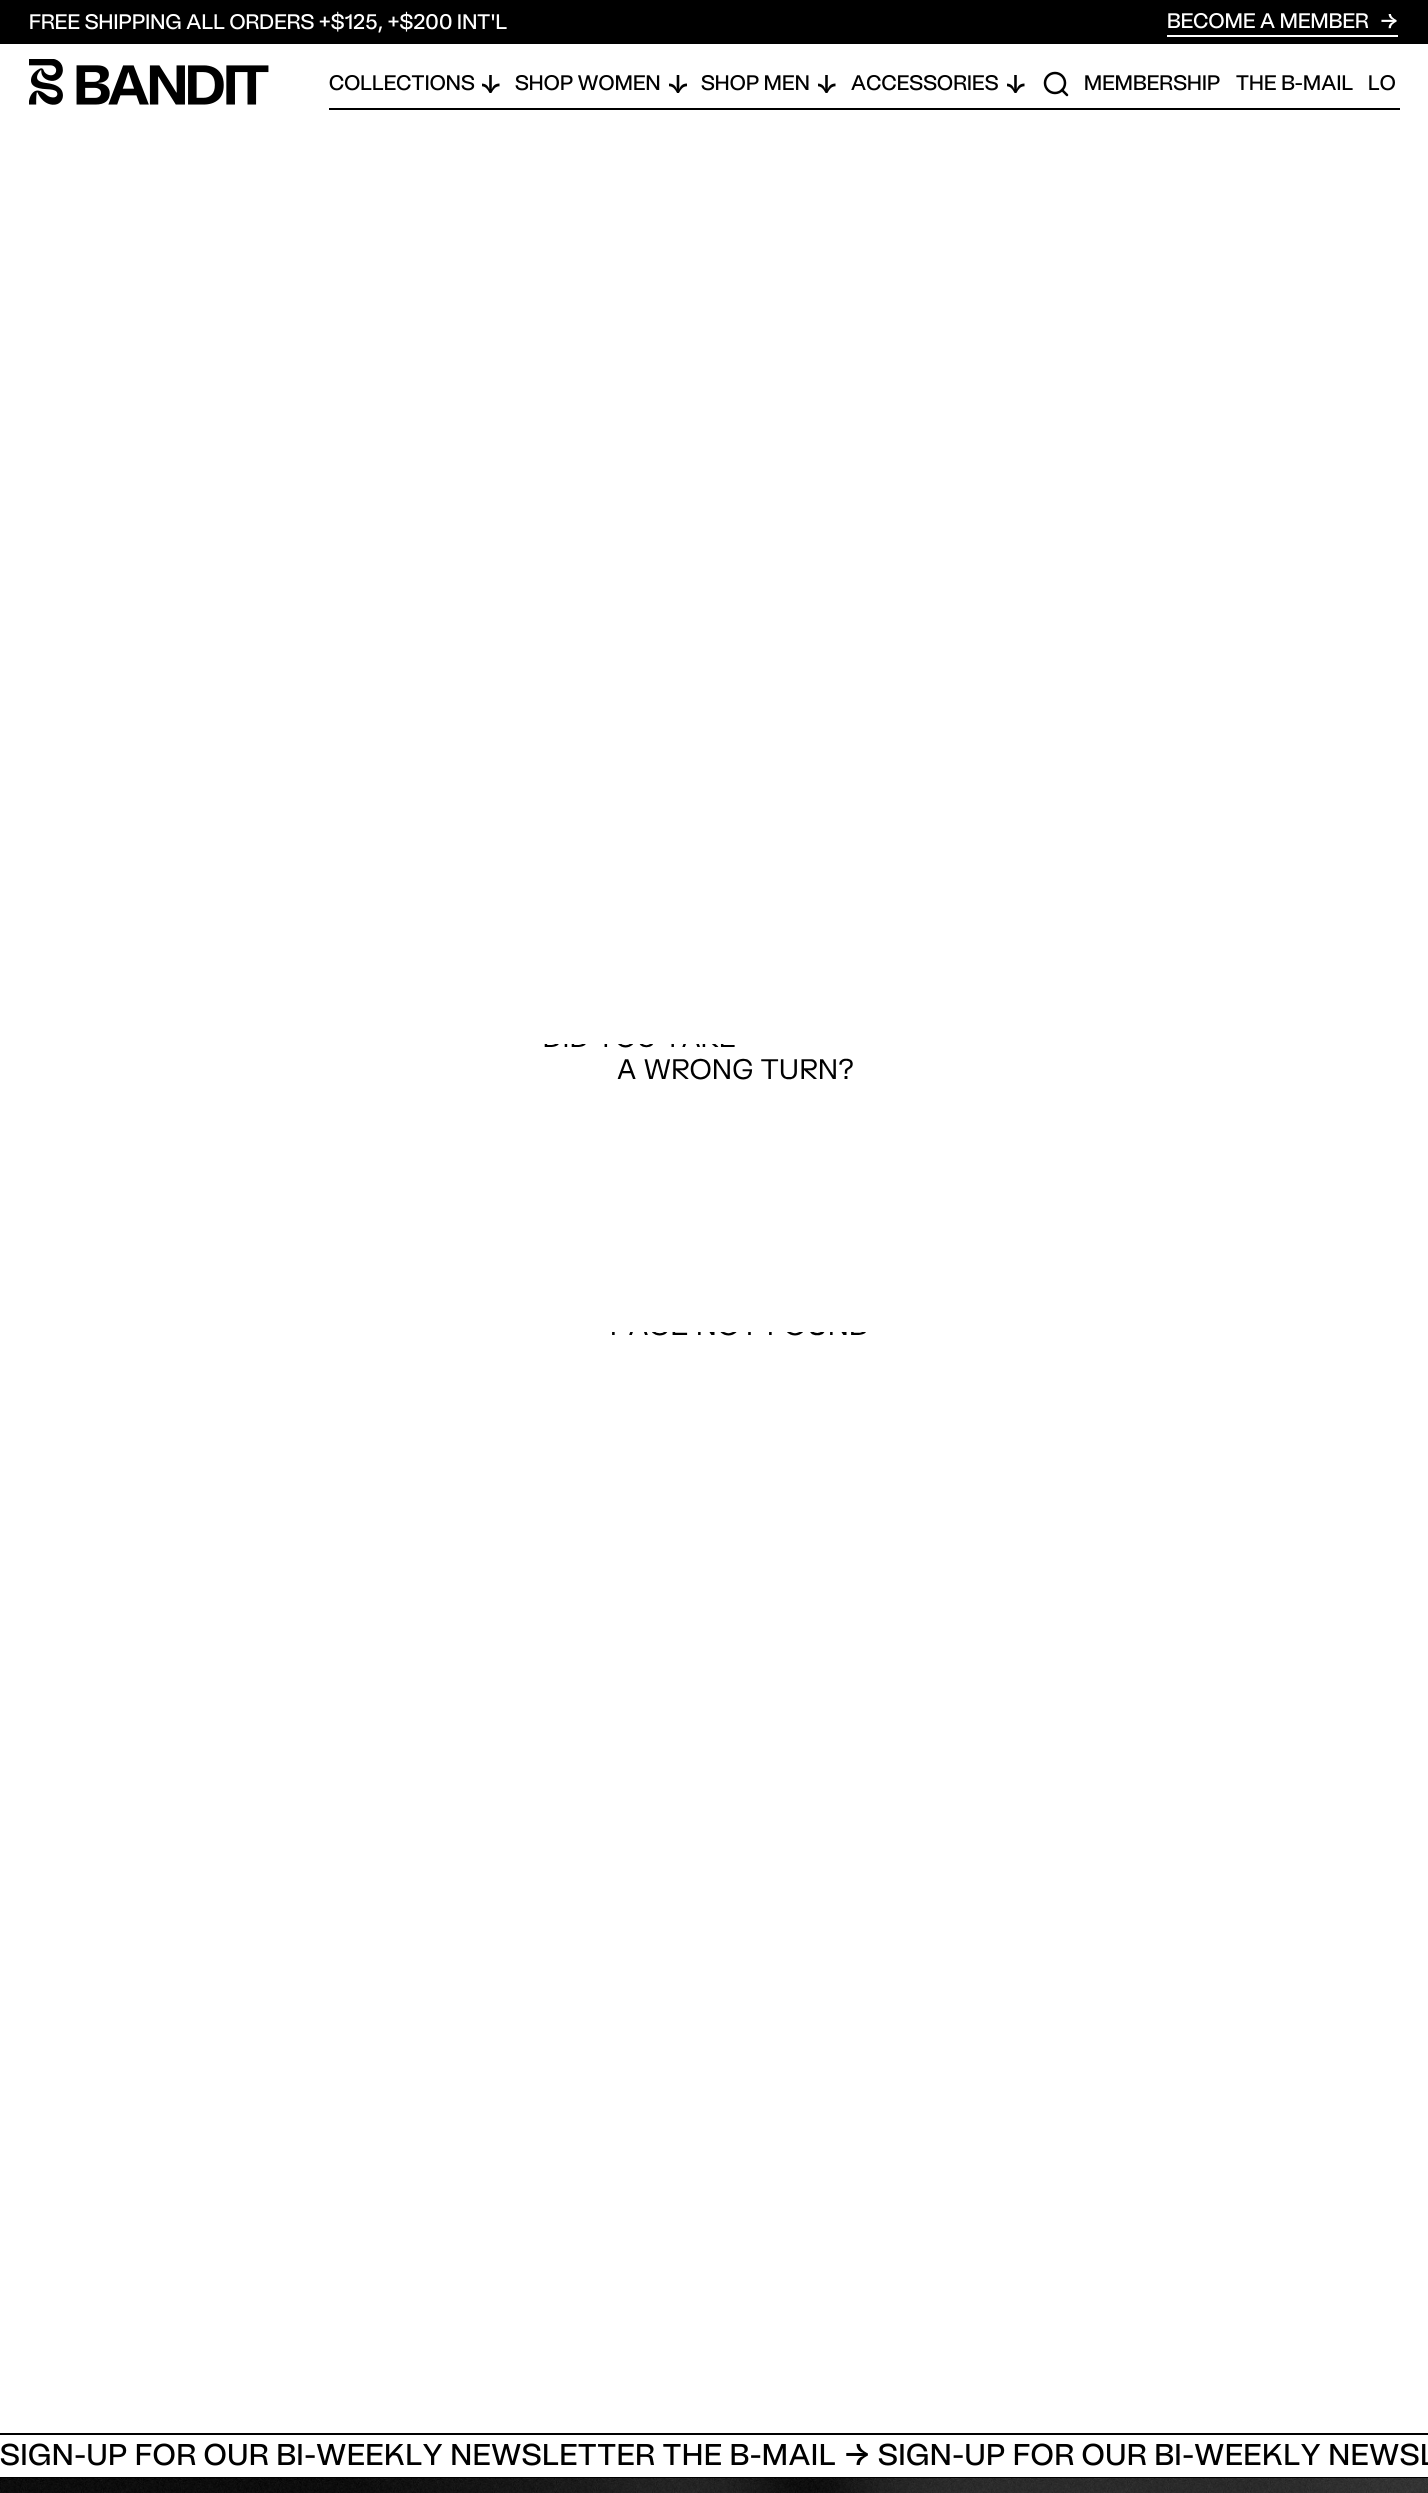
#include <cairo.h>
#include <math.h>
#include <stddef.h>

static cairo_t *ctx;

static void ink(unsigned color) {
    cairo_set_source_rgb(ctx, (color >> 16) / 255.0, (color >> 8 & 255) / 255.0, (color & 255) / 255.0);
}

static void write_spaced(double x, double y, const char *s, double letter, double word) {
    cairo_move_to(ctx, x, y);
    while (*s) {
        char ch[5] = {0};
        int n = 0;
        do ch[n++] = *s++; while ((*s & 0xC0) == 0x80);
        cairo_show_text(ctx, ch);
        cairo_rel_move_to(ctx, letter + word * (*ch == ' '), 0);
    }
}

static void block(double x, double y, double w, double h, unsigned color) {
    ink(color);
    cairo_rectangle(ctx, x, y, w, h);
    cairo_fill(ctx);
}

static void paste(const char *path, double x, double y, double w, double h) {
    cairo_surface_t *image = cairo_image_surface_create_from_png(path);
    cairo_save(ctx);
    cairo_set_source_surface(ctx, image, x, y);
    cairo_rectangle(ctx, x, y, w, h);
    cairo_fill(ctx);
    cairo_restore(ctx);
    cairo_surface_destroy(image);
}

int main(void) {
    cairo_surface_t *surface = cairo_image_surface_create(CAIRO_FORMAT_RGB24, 1428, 2493);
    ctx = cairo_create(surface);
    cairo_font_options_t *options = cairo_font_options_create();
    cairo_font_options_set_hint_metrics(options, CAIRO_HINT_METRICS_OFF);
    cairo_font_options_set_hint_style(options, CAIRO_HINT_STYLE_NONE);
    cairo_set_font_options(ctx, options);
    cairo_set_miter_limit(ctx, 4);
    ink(0xffffff);
    cairo_paint(ctx);
    block(0, 0, 1428, 44, 0x000000);
    cairo_select_font_face(ctx, "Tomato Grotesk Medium", CAIRO_FONT_SLANT_NORMAL, CAIRO_FONT_WEIGHT_NORMAL);
    cairo_set_font_size(ctx, 21);
    ink(0xffffff);
    write_spaced(29, 29, "FREE SHIPPING ALL ORDERS +$125, +$200 INT'L", 0.2, 0);
    write_spaced(1167, 28, "BECOME A MEMBER", 0.2, 0);
    paste("pic1.png", 1381, 14, 16, 15);
    block(1167, 35, 231, 2, 0xffffff);
    paste("pic2.png", 29, 59, 240, 46);
    ink(0x000000);
    write_spaced(329, 90, "COLLECTIONS", 0.2, 0);
    paste("pic3.png", 482, 75, 18, 18);
    write_spaced(515, 90, "SHOP WOMEN", 0.2, 0);
    paste("pic4.png", 669, 75, 18, 18);
    write_spaced(701, 90, "SHOP MEN", 0.2, 0);
    paste("pic3.png", 818, 75, 18, 18);
    write_spaced(851, 90, "ACCESSORIES", 0.2, 0);
    paste("pic3.png", 1007, 75, 18, 18);
    cairo_arc(ctx, 1055, 83, 10, 0, 2 * M_PI);
    cairo_set_line_width(ctx, 2.5);
    cairo_stroke(ctx);
    cairo_new_path(ctx);
    cairo_move_to(ctx, 1067, 95);
    cairo_line_to(ctx, 1062, 90);
    cairo_set_line_cap(ctx, CAIRO_LINE_CAP_ROUND);
    cairo_set_line_join(ctx, CAIRO_LINE_JOIN_ROUND);
    cairo_stroke(ctx);
    write_spaced(1084, 90, "MEMBERSHIP", 0.2, 0);
    write_spaced(1236, 90, "THE B-MAIL", 0.2, 0);
    write_spaced(1368, 90, "LO", 0.2, 0);
    block(329, 108, 1071, 2, 0x000000);
    paste("pic5.png", 544, 1044, 191, 4);
    paste("pic6.png", 617, 1058, 236, 22);
    paste("pic7.png", 612, 1332, 254, 4);
    block(0, 2433, 1428, 2, 0x000000);
    block(0, 2477, 1428, 1, 0x000000);
    cairo_set_font_size(ctx, 30);
    write_spaced(0, 2465, "SIGN-UP FOR OUR BI-WEEKLY NEWSLETTER THE B-MAIL →", 0.9, 0);
    write_spaced(878, 2465, "SIGN-UP FOR OUR BI-WEEKLY NEWSL", 0.9, 0);
    paste("pic8.png", 0, 2478, 1428, 15);
    paste("pic9.png", 0, 2478, 1428, 15);
    cairo_surface_write_to_png(surface, "screenshot.png");
    cairo_font_options_destroy(options);
    cairo_destroy(ctx);
    cairo_surface_destroy(surface);
    return 0;
}
